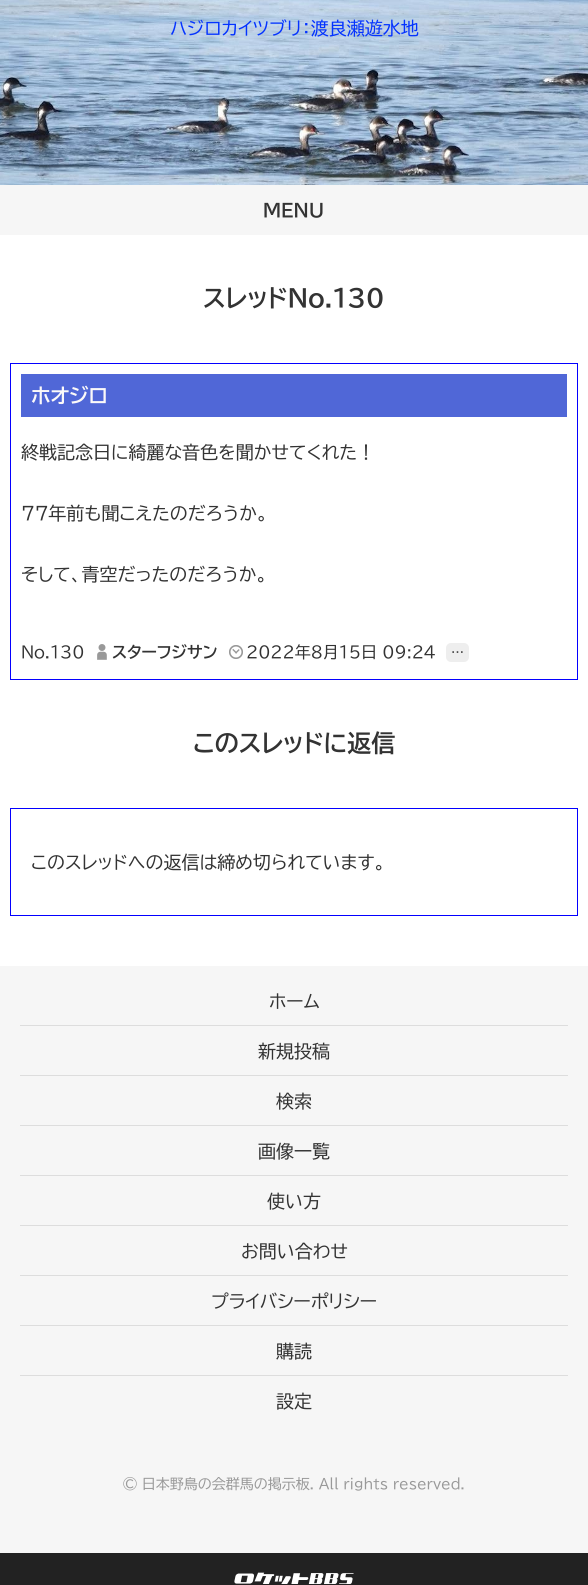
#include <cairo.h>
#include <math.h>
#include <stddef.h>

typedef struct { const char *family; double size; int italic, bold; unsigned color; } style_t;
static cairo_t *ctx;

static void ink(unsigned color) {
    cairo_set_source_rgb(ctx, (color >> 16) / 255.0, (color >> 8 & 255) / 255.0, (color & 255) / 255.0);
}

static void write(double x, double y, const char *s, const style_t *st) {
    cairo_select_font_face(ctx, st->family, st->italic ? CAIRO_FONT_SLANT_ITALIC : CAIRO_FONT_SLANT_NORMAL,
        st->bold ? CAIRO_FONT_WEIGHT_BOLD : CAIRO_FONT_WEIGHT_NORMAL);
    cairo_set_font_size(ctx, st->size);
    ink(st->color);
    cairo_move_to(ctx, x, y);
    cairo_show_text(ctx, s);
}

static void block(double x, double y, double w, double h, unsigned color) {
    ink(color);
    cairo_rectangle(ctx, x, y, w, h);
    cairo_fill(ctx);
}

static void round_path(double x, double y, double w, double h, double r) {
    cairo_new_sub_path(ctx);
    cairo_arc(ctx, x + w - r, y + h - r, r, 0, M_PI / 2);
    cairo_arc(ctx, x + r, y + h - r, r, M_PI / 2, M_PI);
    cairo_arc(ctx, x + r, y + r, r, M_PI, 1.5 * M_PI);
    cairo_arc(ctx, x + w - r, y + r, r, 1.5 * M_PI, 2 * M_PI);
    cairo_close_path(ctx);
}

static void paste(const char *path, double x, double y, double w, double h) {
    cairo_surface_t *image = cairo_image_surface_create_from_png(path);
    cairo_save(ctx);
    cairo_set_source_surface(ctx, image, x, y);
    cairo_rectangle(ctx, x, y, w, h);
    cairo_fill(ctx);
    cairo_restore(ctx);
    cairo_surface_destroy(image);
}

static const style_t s1 = {"BIZ UDPGothic", 18, 0, 0, 0x0433ff};
static const style_t s2 = {"BIZ UDPGothic", 18, 0, 1, 0x333333};
static const style_t s3 = {"BIZ UDPGothic", 24, 0, 1, 0x333333};
static const style_t s4 = {"BIZ UDPGothic", 20, 0, 1, 0xfbf9f9};
static const style_t s5 = {"BIZ UDPGothic", 18, 0, 0, 0x333333};
static const style_t s6 = {"BIZ UDPGothic", 16, 0, 0, 0x333333};
static const style_t s7 = {"BIZ UDPGothic", 16, 0, 1, 0x333333};
static const style_t s8 = {"BIZ UDPGothic", 13, 0, 0, 0x333333};
static const style_t s9 = {"BIZ UDPGothic", 14, 0, 0, 0x999999};

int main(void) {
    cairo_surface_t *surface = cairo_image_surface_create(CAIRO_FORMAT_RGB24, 588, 1585);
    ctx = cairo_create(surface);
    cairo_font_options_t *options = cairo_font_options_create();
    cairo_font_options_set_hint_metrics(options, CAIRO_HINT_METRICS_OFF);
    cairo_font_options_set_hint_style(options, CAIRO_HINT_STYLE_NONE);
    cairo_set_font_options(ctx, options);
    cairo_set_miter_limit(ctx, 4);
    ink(0xffffff);
    cairo_paint(ctx);
    paste("pic1.png", 0, 0, 588, 185);
    write(170, 35, "ハジロカイツブリ：渡良瀬遊水地", &s1);
    block(0, 185, 588, 50, 0xf6f6f6);
    write(263, 217, "MENU", &s2);
    write(203, 307, "スレッドNo.130", &s3);
    cairo_rectangle(ctx, 10.5, 363.5, 567, 316);
    ink(0x0400ff);
    cairo_set_line_width(ctx, 1);
    cairo_stroke(ctx);
    block(21, 374, 546, 43, 0x5067d7);
    write(31, 403, "ホオジロ", &s4);
    write(21, 459, "終戦記念日に綺麗な音色を聞かせてくれた！", &s5);
    write(21, 520, "７７年前も聞こえたのだろうか。", &s5);
    write(21, 581, "そして、青空だったのだろうか。", &s5);
    write(21, 658, "No.130", &s6);
    paste("pic2.png", 97, 644, 10, 16);
    write(112, 658, "スターフジサン", &s7);
    paste("pic3.png", 229, 645, 14, 14);
    write(246, 658, "2022年8月15日 09:24", &s6);
    ink(0xeeeeee);
    round_path(446, 643, 23, 19, 5);
    cairo_fill(ctx);
    write(451, 657, "…", &s8);
    write(193, 752, "このスレッドに返信", &s3);
    cairo_rectangle(ctx, 10.5, 808.5, 567, 107);
    ink(0x0400ff);
    cairo_stroke(ctx);
    write(31, 869, "このスレッドへの返信は締め切られています。", &s5);
    block(0, 966, 588, 587, 0xf6f6f6);
    block(20, 1025, 548, 1, 0xdddddd);
    write(269, 1008, "ホーム", &s5);
    block(20, 1075, 548, 1, 0xdddddd);
    write(258, 1058, "新規投稿", &s5);
    block(20, 1125, 548, 1, 0xdddddd);
    write(276, 1108, "検索", &s5);
    block(20, 1175, 548, 1, 0xdddddd);
    write(258, 1158, "画像一覧", &s5);
    block(20, 1225, 548, 1, 0xdddddd);
    write(267, 1208, "使い方", &s5);
    block(20, 1275, 548, 1, 0xdddddd);
    write(241, 1258, "お問い合わせ", &s5);
    block(20, 1325, 548, 1, 0xdddddd);
    write(211, 1308, "プライバシーポリシー", &s5);
    block(20, 1375, 548, 1, 0xdddddd);
    write(276, 1358, "購読", &s5);
    write(276, 1408, "設定", &s5);
    write(123, 1489, "© 日本野鳥の会群馬の掲示板. All rights reserved.", &s9);
    block(0, 1553, 588, 32, 0x222222);
    paste("pic4.png", 234, 1572, 120, 12);
    cairo_surface_write_to_png(surface, "screenshot.png");
    cairo_font_options_destroy(options);
    cairo_destroy(ctx);
    cairo_surface_destroy(surface);
    return 0;
}
